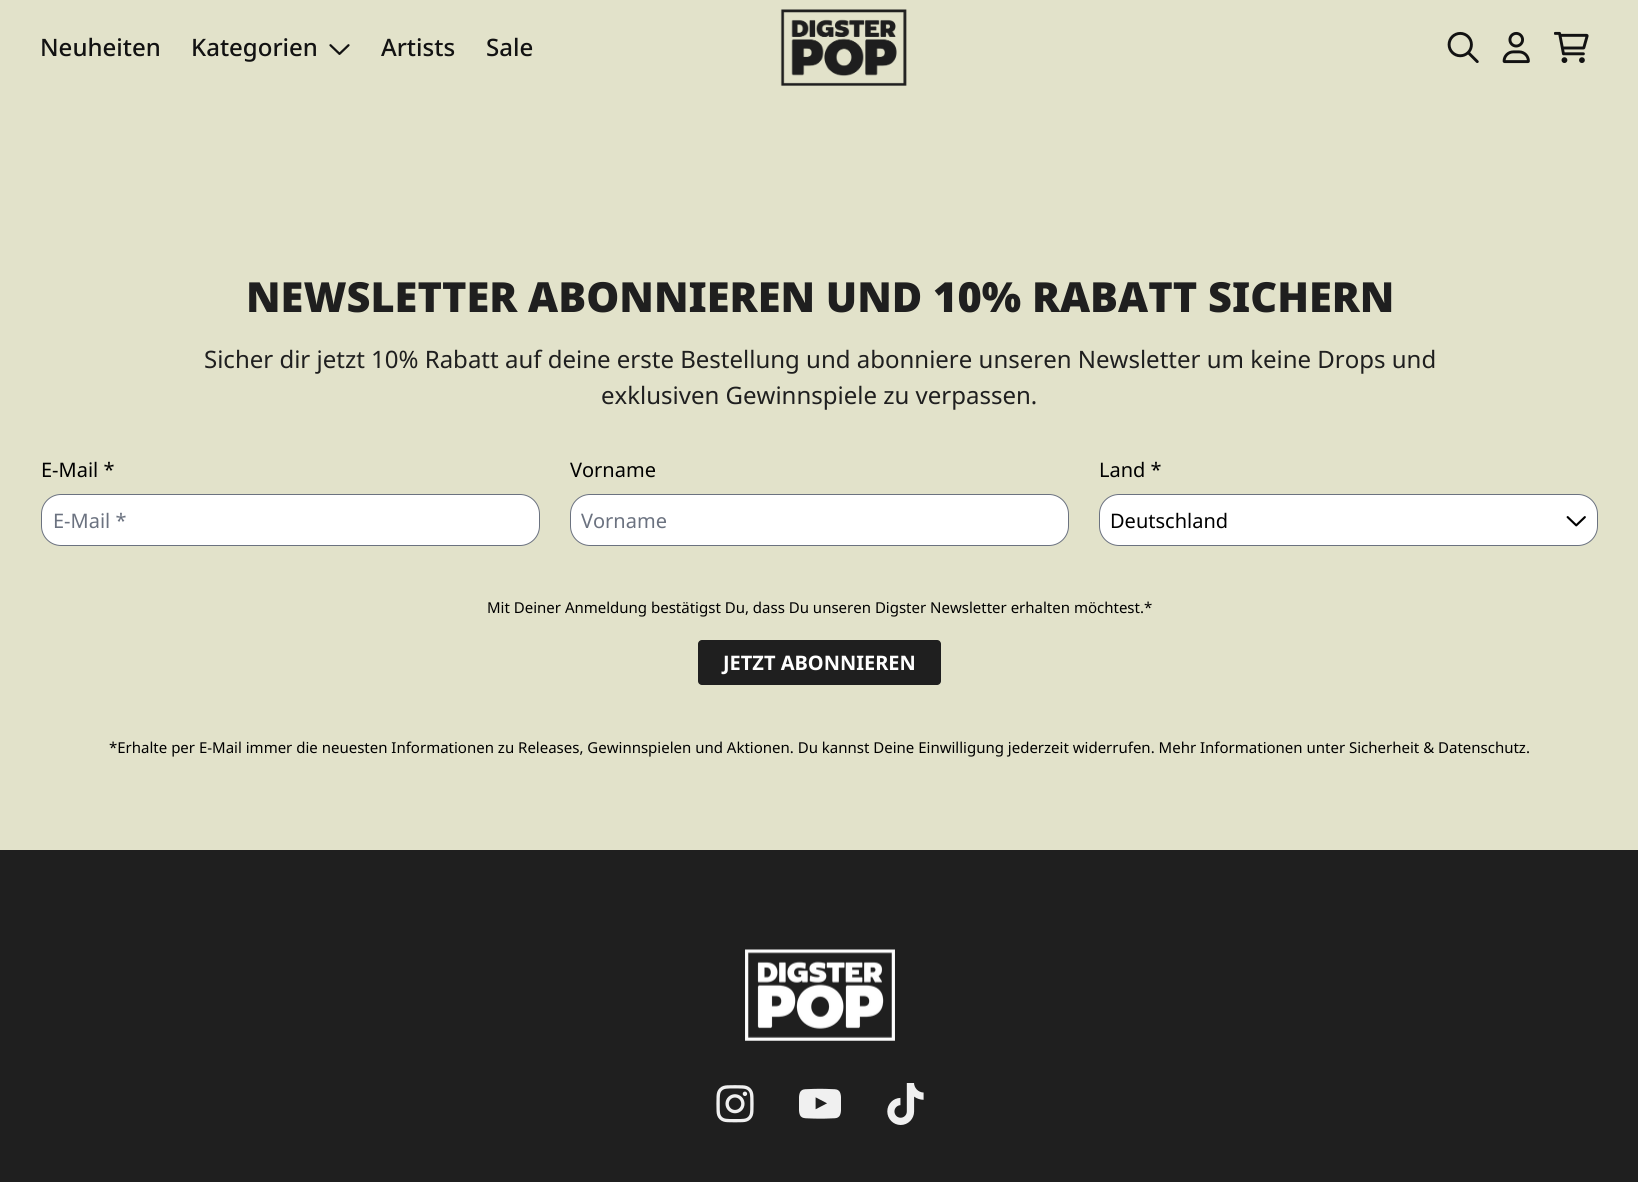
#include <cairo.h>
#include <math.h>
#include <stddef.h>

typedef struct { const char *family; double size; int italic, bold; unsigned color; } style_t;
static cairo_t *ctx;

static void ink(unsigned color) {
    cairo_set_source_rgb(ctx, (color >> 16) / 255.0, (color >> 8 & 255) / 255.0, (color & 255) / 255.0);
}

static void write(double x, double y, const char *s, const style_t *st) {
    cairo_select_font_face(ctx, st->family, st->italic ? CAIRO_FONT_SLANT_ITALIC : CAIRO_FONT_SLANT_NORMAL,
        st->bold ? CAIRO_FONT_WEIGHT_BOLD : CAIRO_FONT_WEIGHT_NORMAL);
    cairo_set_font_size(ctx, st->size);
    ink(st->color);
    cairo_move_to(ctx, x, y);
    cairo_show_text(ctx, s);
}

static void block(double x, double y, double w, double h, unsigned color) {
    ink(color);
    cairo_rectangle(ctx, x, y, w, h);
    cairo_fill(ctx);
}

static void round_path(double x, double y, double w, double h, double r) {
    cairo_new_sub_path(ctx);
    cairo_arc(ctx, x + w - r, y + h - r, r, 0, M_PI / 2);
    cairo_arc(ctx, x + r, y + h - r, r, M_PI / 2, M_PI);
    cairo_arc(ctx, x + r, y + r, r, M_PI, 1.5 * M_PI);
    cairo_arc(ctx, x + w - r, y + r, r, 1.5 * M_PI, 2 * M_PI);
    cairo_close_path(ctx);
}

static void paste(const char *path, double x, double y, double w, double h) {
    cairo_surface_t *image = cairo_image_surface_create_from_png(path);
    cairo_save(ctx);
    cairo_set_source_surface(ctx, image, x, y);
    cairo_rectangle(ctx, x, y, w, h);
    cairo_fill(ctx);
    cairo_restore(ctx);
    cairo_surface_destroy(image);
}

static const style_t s1 = {"Noto Sans Medium", 24, 0, 0, 0x121212};
static const style_t s2 = {"Noto Sans Black", 41.5, 0, 0, 0x1f1f1f};
static const style_t s3 = {"Noto Sans", 24, 0, 0, 0x1f1f1f};
static const style_t s4 = {"Noto Sans", 20, 0, 0, 0x000000};
static const style_t s5 = {"Noto Sans", 20, 0, 0, 0x6b7280};
static const style_t s6 = {"Noto Sans", 15, 0, 0, 0x000000};
static const style_t s7 = {"Noto Sans", 20, 0, 1, 0xffffff};

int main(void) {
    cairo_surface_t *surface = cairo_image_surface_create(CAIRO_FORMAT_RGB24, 1638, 1182);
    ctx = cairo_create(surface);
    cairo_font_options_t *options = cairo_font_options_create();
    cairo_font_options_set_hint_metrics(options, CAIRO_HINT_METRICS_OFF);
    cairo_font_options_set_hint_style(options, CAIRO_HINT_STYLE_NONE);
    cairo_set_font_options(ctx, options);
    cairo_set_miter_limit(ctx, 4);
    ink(0xe2e2ca);
    cairo_paint(ctx);
    write(40, 56, "Neuheiten", &s1);
    write(191, 56, "Kategorien", &s1);
    paste("pic1.png", 329, 44, 21, 11);
    write(381, 56, "Artists", &s1);
    write(486, 56, "Sale", &s1);
    paste("pic2.png", 780, 9, 127, 77);
    paste("pic3.png", 1447, 31, 32, 32);
    paste("pic4.png", 1502, 31, 28, 33);
    paste("pic5.png", 1554, 31, 35, 32);
    write(246, 312, "NEWSLETTER ABONNIEREN UND 10% RABATT SICHERN", &s2);
    write(204, 368, "Sicher dir jetzt 10% Rabatt auf deine erste Bestellung und abonniere unseren Newsletter um keine Drops und", &s3);
    write(601, 404, "exklusiven Gewinnspiele zu verpassen.", &s3);
    write(41, 477, "E-Mail *", &s4);
    ink(0xffffff);
    round_path(41.5, 494.5, 498, 51, 19.5);
    cairo_fill_preserve(ctx);
    ink(0x6b7280);
    cairo_set_line_width(ctx, 1);
    cairo_stroke(ctx);
    write(53, 528, "E-Mail *", &s5);
    write(570, 477, "Vorname", &s4);
    ink(0xffffff);
    round_path(570.5, 494.5, 498, 51, 19.5);
    cairo_fill_preserve(ctx);
    ink(0x6b7280);
    cairo_stroke(ctx);
    write(581, 528, "Vorname", &s5);
    write(1099, 477, "Land *", &s4);
    ink(0xffffff);
    round_path(1099.5, 494.5, 498, 51, 19.5);
    cairo_fill_preserve(ctx);
    ink(0x6b7280);
    cairo_stroke(ctx);
    write(1110, 528, "Deutschland", &s4);
    paste("pic6.png", 1566, 516, 20, 11);
    write(487, 613, "Mit Deiner Anmeldung bestätigst Du, dass Du unseren Digster Newsletter erhalten möchtest.*", &s6);
    ink(0x1f1f1f);
    round_path(698, 640, 243, 45, 4);
    cairo_fill(ctx);
    write(723, 670, "JETZT ABONNIEREN", &s7);
    write(109, 753, "*Erhalte per E-Mail immer die neuesten Informationen zu Releases, Gewinnspielen und Aktionen. Du kannst Deine Einwilligung jederzeit widerrufen. Mehr Informationen unter Sicherheit & Datenschutz.", &s6);
    block(0, 850, 1638, 332, 0x1f1f1f);
    paste("pic7.png", 745, 949, 150, 92);
    paste("pic8.png", 716, 1085, 38, 38);
    paste("pic9.png", 799, 1088, 42, 31);
    paste("pic10.png", 887, 1083, 37, 42);
    cairo_surface_write_to_png(surface, "screenshot.png");
    cairo_font_options_destroy(options);
    cairo_destroy(ctx);
    cairo_surface_destroy(surface);
    return 0;
}
